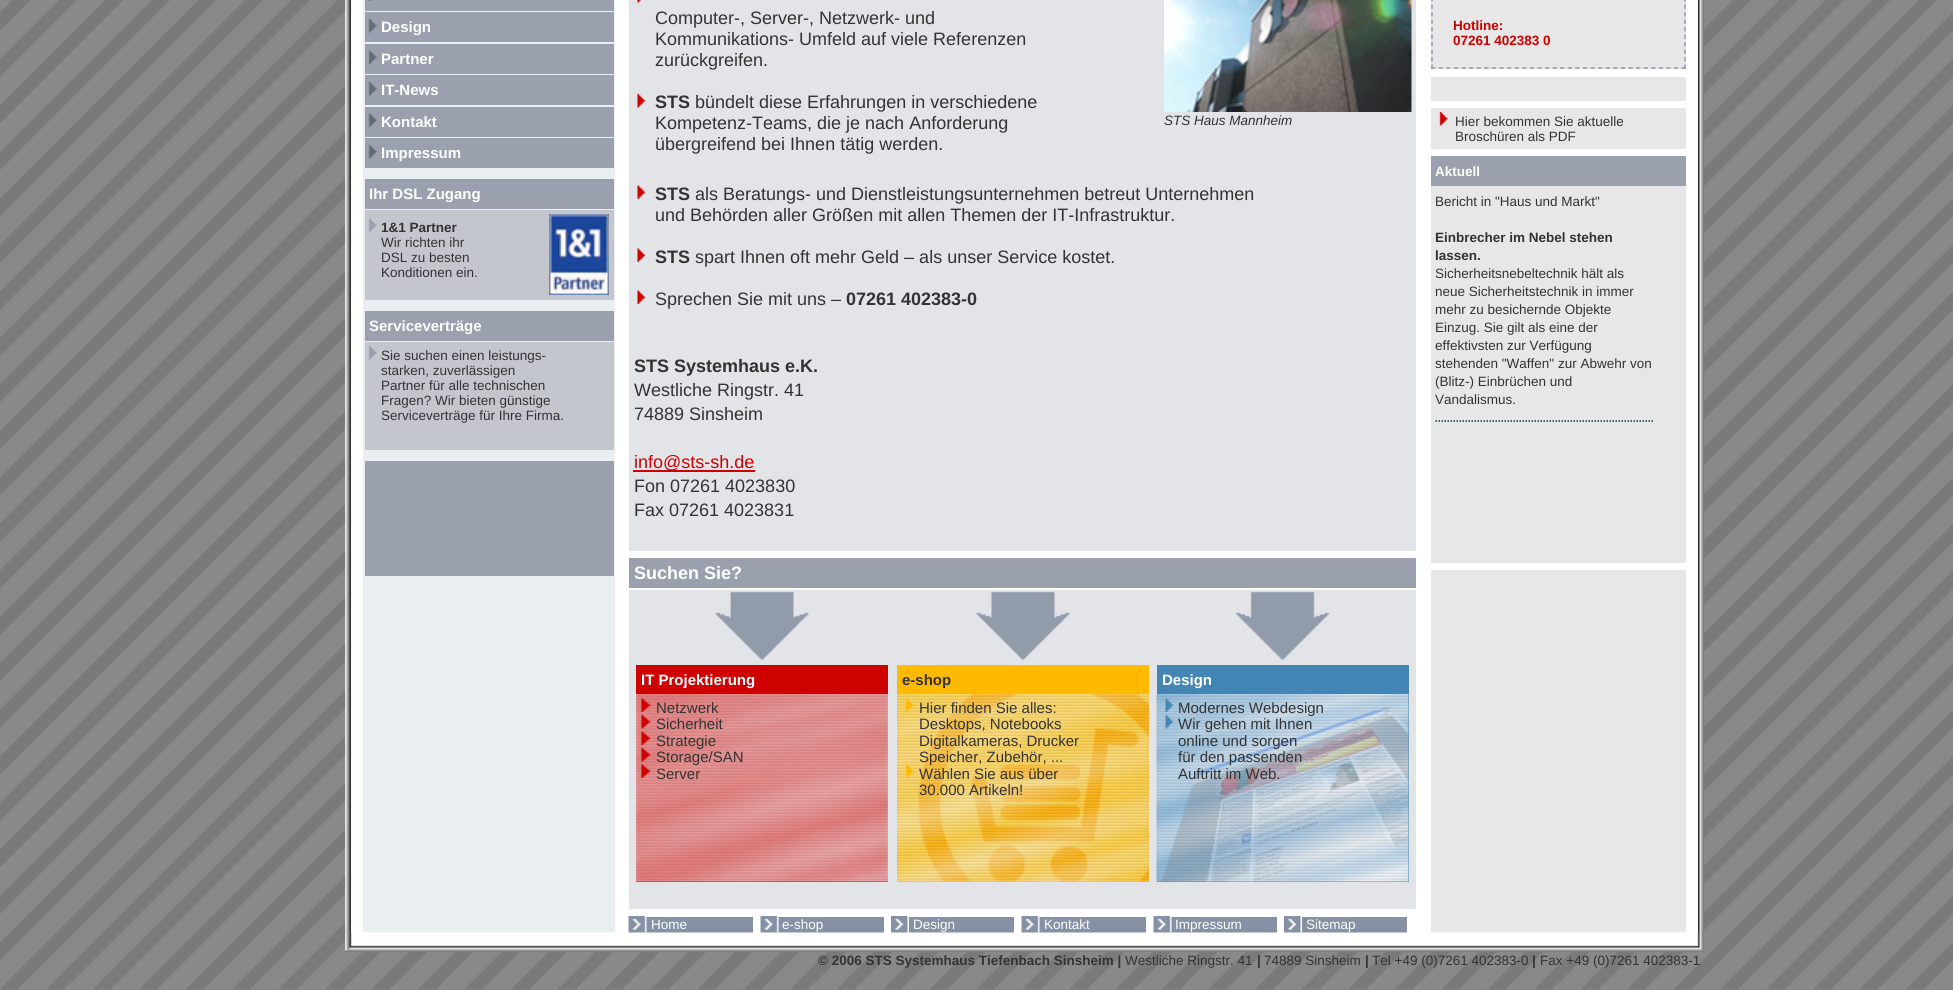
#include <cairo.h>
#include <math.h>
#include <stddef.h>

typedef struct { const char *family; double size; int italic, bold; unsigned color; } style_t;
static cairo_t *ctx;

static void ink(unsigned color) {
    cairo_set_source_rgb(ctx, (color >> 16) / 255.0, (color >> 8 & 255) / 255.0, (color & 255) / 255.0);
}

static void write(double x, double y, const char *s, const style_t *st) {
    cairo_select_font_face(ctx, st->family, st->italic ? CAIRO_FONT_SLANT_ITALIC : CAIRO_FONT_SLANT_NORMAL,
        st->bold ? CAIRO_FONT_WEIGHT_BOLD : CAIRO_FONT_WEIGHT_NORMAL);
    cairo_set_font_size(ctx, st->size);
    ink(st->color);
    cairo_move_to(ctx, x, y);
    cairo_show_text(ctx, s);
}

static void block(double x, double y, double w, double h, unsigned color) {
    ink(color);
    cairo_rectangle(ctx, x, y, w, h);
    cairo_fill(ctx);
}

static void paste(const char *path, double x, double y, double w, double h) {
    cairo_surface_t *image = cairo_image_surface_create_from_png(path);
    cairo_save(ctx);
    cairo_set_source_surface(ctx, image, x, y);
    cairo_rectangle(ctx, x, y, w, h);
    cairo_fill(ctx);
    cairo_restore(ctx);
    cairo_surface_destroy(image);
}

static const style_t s1 = {"Liberation Sans", 15, 0, 1, 0xffffff};
static const style_t s2 = {"Liberation Sans", 13.5, 0, 1, 0x333333};
static const style_t s3 = {"Liberation Sans", 13.5, 0, 0, 0x333333};
static const style_t s4 = {"Liberation Sans", 18, 0, 0, 0x333333};
static const style_t s5 = {"Liberation Sans", 18, 0, 1, 0x333333};
static const style_t s6 = {"Liberation Sans", 13.5, 1, 0, 0x333333};
static const style_t s7 = {"Liberation Sans", 18, 0, 0, 0xce0000};
static const style_t s8 = {"Liberation Sans", 18, 0, 1, 0xffffff};
static const style_t s9 = {"Liberation Sans", 15, 0, 1, 0x333333};
static const style_t s10 = {"Liberation Sans", 15, 0, 0, 0x333333};
static const style_t s11 = {"Liberation Sans", 13.5, 0, 0, 0xffffff};
static const style_t s12 = {"Liberation Sans", 13.5, 0, 1, 0xce0000};
static const style_t s13 = {"Liberation Sans", 13.5, 0, 1, 0xffffff};

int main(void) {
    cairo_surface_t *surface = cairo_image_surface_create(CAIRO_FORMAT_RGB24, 1953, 990);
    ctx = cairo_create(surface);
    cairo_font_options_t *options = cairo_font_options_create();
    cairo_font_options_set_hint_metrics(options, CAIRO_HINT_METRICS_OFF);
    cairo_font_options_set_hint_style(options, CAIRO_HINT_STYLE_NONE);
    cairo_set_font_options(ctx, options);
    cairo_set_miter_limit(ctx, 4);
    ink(0x898989);
    cairo_paint(ctx);
    paste("pic1.png", 0, 0, 1953, 990);
    paste("pic2.png", 345, 0, 6, 933);
    block(351, 0, 1347, 933, 0xffffff);
    block(363, 0, 252, 933, 0xe9eef0);
    block(365, 0, 249, 11, 0x9aa0ad);
    paste("pic3.png", 368, 0, 3, 1);
    block(365, 12, 249, 30, 0x9aa0ad);
    paste("pic4.png", 368, 19, 9, 14);
    write(381, 32, "Design", &s1);
    block(365, 44, 249, 30, 0x9aa0ad);
    paste("pic5.png", 368, 50, 9, 14);
    write(381, 64, "Partner", &s1);
    block(365, 75, 249, 30, 0x9aa0ad);
    paste("pic4.png", 368, 82, 9, 14);
    write(381, 95, "IT-News", &s1);
    block(365, 107, 249, 30, 0x9aa0ad);
    paste("pic5.png", 368, 113, 9, 14);
    write(381, 127, "Kontakt", &s1);
    block(365, 138, 249, 30, 0x9aa0ad);
    paste("pic4.png", 368, 145, 9, 14);
    write(381, 158, "Impressum", &s1);
    block(365, 179, 249, 30, 0x9aa0ad);
    write(369, 199, "Ihr DSL Zugang", &s1);
    block(365, 210, 249, 90, 0xc3c6cd);
    paste("pic6.png", 368, 218, 9, 14);
    write(381, 232, "1&1 Partner", &s2);
    write(381, 247, "Wir richten ihr", &s3);
    write(381, 262, "DSL zu besten", &s3);
    write(381, 277, "Konditionen ein.", &s3);
    paste("pic7.png", 549, 214, 60, 81);
    block(365, 311, 249, 30, 0x9aa0ad);
    write(369, 331, "Serviceverträge", &s1);
    block(365, 342, 249, 108, 0xc3c6cd);
    paste("pic8.png", 368, 346, 9, 14);
    write(381, 360, "Sie suchen einen leistungs-", &s3);
    write(381, 375, "starken, zuverlässigen", &s3);
    write(381, 390, "Partner für alle technischen", &s3);
    write(381, 405, "Fragen? Wir bieten günstige", &s3);
    write(381, 420, "Serviceverträge für Ihre Firma.", &s3);
    block(365, 461, 249, 115, 0x9aa0ad);
    block(629, 0, 787, 551, 0xe2e4e8);
    paste("pic9.png", 637, 0, 4, 3);
    write(655, 24, "Computer-, Server-, Netzwerk- und", &s4);
    write(655, 45, "Kommunikations- Umfeld auf viele Referenzen", &s4);
    write(655, 66, "zurückgreifen.", &s4);
    paste("pic10.png", 637, 94, 9, 14);
    write(655, 108, "STS", &s5);
    write(695, 108, "bündelt diese Erfahrungen in verschiedene", &s4);
    write(655, 129, "Kompetenz-Teams, die je nach Anforderung", &s4);
    write(655, 150, "übergreifend bei Ihnen tätig werden.", &s4);
    paste("pic11.png", 1164, 0, 248, 112);
    write(1164, 125, "STS Haus Mannheim", &s6);
    paste("pic12.png", 637, 185, 9, 14);
    write(655, 200, "STS", &s5);
    write(695, 200, "als Beratungs- und Dienstleistungsunternehmen betreut Unternehmen", &s4);
    write(655, 221, "und Behörden aller Größen mit allen Themen der IT-Infrastruktur.", &s4);
    paste("pic12.png", 637, 248, 9, 14);
    write(655, 263, "STS", &s5);
    write(695, 263, "spart Ihnen oft mehr Geld – als unser Service kostet.", &s4);
    paste("pic12.png", 637, 290, 9, 14);
    write(655, 305, "Sprechen Sie mit uns –", &s4);
    write(846, 305, "07261 402383-0", &s5);
    write(634, 372, "STS Systemhaus e.K.", &s5);
    write(634, 396, "Westliche Ringstr. 41", &s4);
    write(634, 420, "74889 Sinsheim", &s4);
    block(633, 470, 122, 2, 0xce0000);
    write(634, 468, "info@sts-sh.de", &s7);
    write(634, 492, "Fon 07261 4023830", &s4);
    write(634, 516, "Fax 07261 4023831", &s4);
    block(629, 558, 787, 30, 0x9aa0ad);
    write(634, 579, "Suchen Sie?", &s8);
    block(629, 590, 787, 319, 0xe2e4e8);
    paste("pic13.png", 715, 591, 94, 69);
    paste("pic14.png", 976, 591, 94, 69);
    paste("pic15.png", 1236, 591, 93, 69);
    block(636, 665, 252, 29, 0xce0000);
    write(641, 685, "IT Projektierung", &s1);
    block(897, 665, 252, 29, 0xffba00);
    write(902, 685, "e-shop", &s9);
    block(1157, 665, 252, 217, 0x4386b5);
    write(1162, 685, "Design", &s1);
    block(636, 881, 252, 1, 0xce0000);
    paste("pic16.png", 636, 694, 252, 188);
    paste("pic17.png", 641, 698, 10, 14);
    write(656, 713, "Netzwerk", &s10);
    paste("pic18.png", 641, 715, 10, 14);
    write(656, 729, "Sicherheit", &s10);
    paste("pic19.png", 641, 731, 10, 14);
    write(656, 746, "Strategie", &s10);
    paste("pic20.png", 641, 748, 10, 14);
    write(656, 762, "Storage/SAN", &s10);
    paste("pic21.png", 641, 764, 10, 14);
    write(656, 779, "Server", &s10);
    block(897, 881, 252, 1, 0xffba00);
    paste("pic22.png", 897, 694, 252, 188);
    paste("pic23.png", 905, 698, 9, 14);
    write(919, 713, "Hier finden Sie alles:", &s10);
    write(919, 729, "Desktops, Notebooks", &s10);
    write(919, 746, "Digitalkameras, Drucker", &s10);
    write(919, 762, "Speicher, Zubehör, ...", &s10);
    paste("pic24.png", 905, 764, 9, 14);
    write(919, 779, "Wählen Sie aus über", &s10);
    write(919, 795, "30.000 Artikeln!", &s10);
    paste("pic25.png", 1156, 694, 253, 188);
    paste("pic26.png", 1165, 698, 9, 14);
    write(1178, 713, "Modernes Webdesign", &s10);
    paste("pic27.png", 1165, 715, 9, 14);
    write(1178, 729, "Wir gehen mit Ihnen", &s10);
    write(1178, 746, "online und sorgen", &s10);
    write(1178, 762, "für den passenden", &s10);
    write(1178, 779, "Auftritt im Web.", &s10);
    block(629, 917, 124, 16, 0x8691a6);
    paste("pic28.png", 628, 916, 19, 17);
    write(651, 929, "Home", &s11);
    block(761, 917, 123, 16, 0x8691a6);
    paste("pic29.png", 760, 916, 19, 17);
    write(782, 929, "e-shop", &s11);
    block(891, 917, 123, 16, 0x8691a6);
    paste("pic30.png", 891, 916, 18, 17);
    write(913, 929, "Design", &s11);
    block(1022, 917, 124, 16, 0x8691a6);
    paste("pic29.png", 1021, 916, 19, 17);
    write(1044, 929, "Kontakt", &s11);
    block(1154, 917, 123, 16, 0x8691a6);
    paste("pic28.png", 1153, 916, 19, 17);
    write(1175, 929, "Impressum", &s11);
    block(1284, 917, 123, 16, 0x8691a6);
    paste("pic31.png", 1284, 916, 18, 17);
    write(1306, 929, "Sitemap", &s11);
    block(1431, 0, 255, 933, 0xe7e7e7);
    cairo_new_path(ctx);
    cairo_move_to(ctx, 1685, -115.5);
    cairo_line_to(ctx, 1685, 69);
    ink(0x929baa);
    cairo_set_line_width(ctx, 1.5);
    cairo_set_dash(ctx, (double[]){4.5, 3}, 2, 0);
    cairo_stroke(ctx);
    cairo_new_path(ctx);
    cairo_move_to(ctx, 1431, 68);
    cairo_line_to(ctx, 1686, 68);
    cairo_set_dash(ctx, (double[]){4.5, 3.09}, 2, 0);
    cairo_stroke(ctx);
    cairo_new_path(ctx);
    cairo_move_to(ctx, 1432, -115.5);
    cairo_line_to(ctx, 1432, 69);
    cairo_set_dash(ctx, (double[]){4.5, 3}, 2, 0);
    cairo_stroke(ctx);
    write(1453, 30, "Hotline:", &s12);
    write(1453, 45, "07261 402383 0", &s12);
    block(1431, 69, 255, 8, 0xffffff);
    block(1431, 101, 255, 7, 0xffffff);
    paste("pic32.png", 1439, 112, 9, 14);
    write(1455, 126, "Hier bekommen Sie aktuelle", &s3);
    write(1455, 141, "Broschüren als PDF", &s3);
    block(1431, 149, 255, 7, 0xffffff);
    block(1431, 156, 255, 30, 0x9aa0ad);
    write(1435, 176, "Aktuell", &s13);
    cairo_new_path(ctx);
    cairo_move_to(ctx, 1435.5, 421);
    cairo_line_to(ctx, 1653, 421);
    ink(0x003344);
    cairo_set_dash(ctx, (double[]){1.5, 1.5}, 2, 0);
    cairo_stroke(ctx);
    write(1435, 206, "Bericht in \"Haus und Markt\"", &s3);
    write(1435, 242, "Einbrecher im Nebel stehen", &s2);
    write(1435, 260, "lassen.", &s2);
    write(1435, 278, "Sicherheitsnebeltechnik hält als", &s3);
    write(1435, 296, "neue Sicherheitstechnik in immer", &s3);
    write(1435, 314, "mehr zu besichernde Objekte", &s3);
    write(1435, 332, "Einzug. Sie gilt als eine der", &s3);
    write(1435, 350, "effektivsten zur Verfügung", &s3);
    write(1435, 368, "stehenden \"Waffen\" zur Abwehr von", &s3);
    write(1435, 386, "(Blitz-) Einbrüchen und", &s3);
    write(1435, 404, "Vandalismus.", &s3);
    block(1431, 563, 255, 7, 0xffffff);
    paste("pic33.png", 1698, 0, 6, 933);
    paste("pic34.png", 345, 932, 1359, 20);
    write(818, 965, "© 2006 STS Systemhaus Tiefenbach Sinsheim |", &s2);
    write(1125, 965, "Westliche Ringstr. 41", &s3);
    write(1257, 965, "|", &s2);
    write(1264, 965, "74889 Sinsheim", &s3);
    write(1365, 965, "|", &s2);
    write(1372, 965, "Tel +49 (0)7261 402383-0", &s3);
    write(1532, 965, "|", &s2);
    write(1540, 965, "Fax +49 (0)7261 402383-1", &s3);
    cairo_surface_write_to_png(surface, "screenshot.png");
    cairo_font_options_destroy(options);
    cairo_destroy(ctx);
    cairo_surface_destroy(surface);
    return 0;
}
